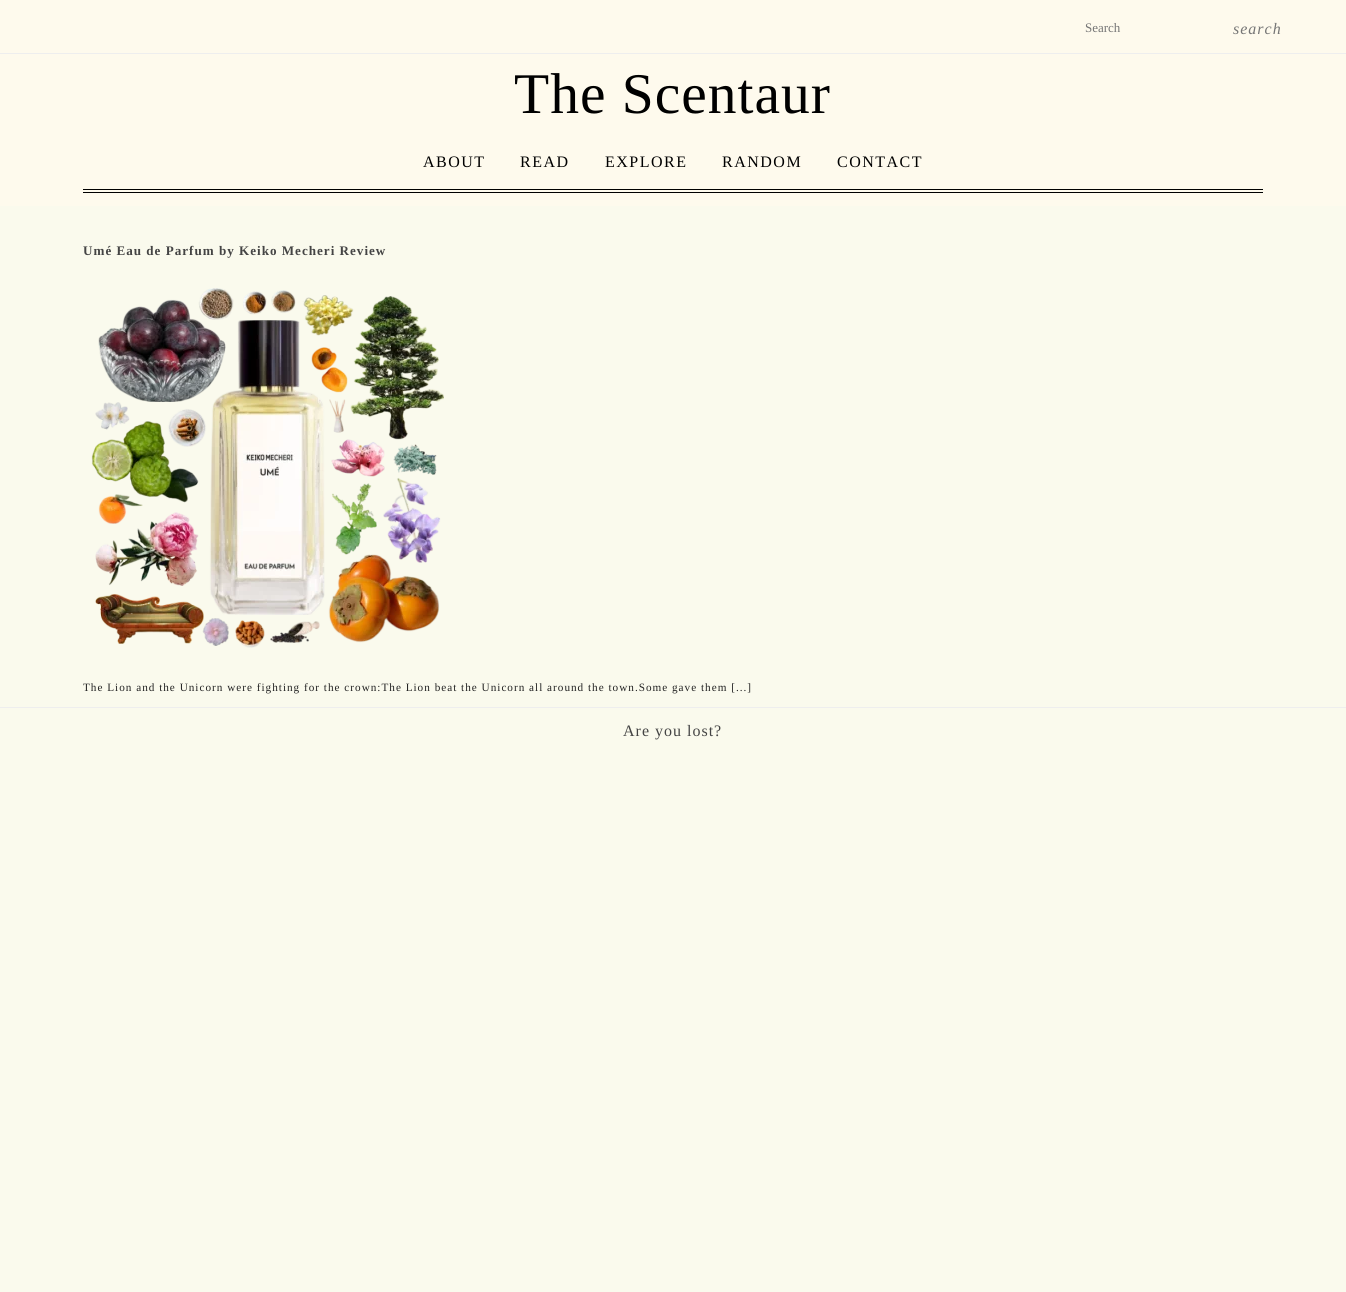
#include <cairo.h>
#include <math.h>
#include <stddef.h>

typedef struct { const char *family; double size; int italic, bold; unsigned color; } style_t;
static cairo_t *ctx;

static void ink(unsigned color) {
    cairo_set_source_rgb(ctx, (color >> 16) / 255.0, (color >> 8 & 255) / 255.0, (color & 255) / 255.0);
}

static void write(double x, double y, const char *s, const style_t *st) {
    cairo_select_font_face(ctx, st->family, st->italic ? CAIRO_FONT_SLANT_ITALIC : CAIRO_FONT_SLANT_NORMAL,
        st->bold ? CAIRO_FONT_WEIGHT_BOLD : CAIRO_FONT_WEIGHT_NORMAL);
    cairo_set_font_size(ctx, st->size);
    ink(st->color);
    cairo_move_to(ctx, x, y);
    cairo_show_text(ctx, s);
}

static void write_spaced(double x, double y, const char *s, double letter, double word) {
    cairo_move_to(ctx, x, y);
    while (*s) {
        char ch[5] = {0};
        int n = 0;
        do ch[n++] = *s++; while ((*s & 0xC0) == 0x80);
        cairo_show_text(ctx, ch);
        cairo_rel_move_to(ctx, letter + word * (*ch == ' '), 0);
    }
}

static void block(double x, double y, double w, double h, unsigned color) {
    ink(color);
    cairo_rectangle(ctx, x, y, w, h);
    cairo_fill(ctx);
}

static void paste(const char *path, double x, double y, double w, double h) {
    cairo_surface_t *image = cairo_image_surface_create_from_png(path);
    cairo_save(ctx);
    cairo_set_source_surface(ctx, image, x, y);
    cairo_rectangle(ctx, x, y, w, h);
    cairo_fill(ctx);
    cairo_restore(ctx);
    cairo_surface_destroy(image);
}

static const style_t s1 = {"Liberation Serif", 13, 0, 0, 0x757575};

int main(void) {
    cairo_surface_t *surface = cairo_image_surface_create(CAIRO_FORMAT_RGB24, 1346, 1292);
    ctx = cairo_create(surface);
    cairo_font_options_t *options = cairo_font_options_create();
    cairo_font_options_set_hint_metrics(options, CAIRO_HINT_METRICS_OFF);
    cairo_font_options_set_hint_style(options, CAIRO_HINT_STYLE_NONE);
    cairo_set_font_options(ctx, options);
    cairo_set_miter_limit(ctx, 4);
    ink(0xfafaed);
    cairo_paint(ctx);
    block(0, 0, 1346, 206, 0xfefaed);
    block(0, 53, 1346, 1, 0xeeeeee);
    write(1085, 32, "Search", &s1);
    cairo_select_font_face(ctx, "Liberation Serif", CAIRO_FONT_SLANT_ITALIC, CAIRO_FONT_WEIGHT_NORMAL);
    cairo_set_font_size(ctx, 16);
    write_spaced(1233, 34, "search", 1, 0);
    cairo_select_font_face(ctx, "Liberation Serif", CAIRO_FONT_SLANT_NORMAL, CAIRO_FONT_WEIGHT_NORMAL);
    cairo_set_font_size(ctx, 57.5);
    ink(0x000000);
    write_spaced(514, 113, "The Scentaur", 1, 0);
    block(83, 189, 1180, 1, 0x000000);
    block(83, 192, 1180, 1, 0x000000);
    cairo_set_font_size(ctx, 16);
    write_spaced(423, 167, "ABOUT", 1.5, 0);
    write_spaced(520, 167, "READ", 1.5, 0);
    write_spaced(605, 167, "EXPLORE", 1.5, 0);
    write_spaced(722, 167, "RANDOM", 1.5, 0);
    write_spaced(837, 167, "CONTACT", 1.5, 0);
    cairo_select_font_face(ctx, "Liberation Serif", CAIRO_FONT_SLANT_NORMAL, CAIRO_FONT_WEIGHT_BOLD);
    cairo_set_font_size(ctx, 13.1);
    ink(0x444444);
    write_spaced(83, 255, "Umé Eau de Parfum by Keiko Mecheri Review", 1, 0);
    paste("pic1.png", 91, 288, 353, 360);
    cairo_select_font_face(ctx, "Liberation Serif", CAIRO_FONT_SLANT_NORMAL, CAIRO_FONT_WEIGHT_NORMAL);
    cairo_set_font_size(ctx, 11.2);
    ink(0x222222);
    write_spaced(83, 691, "The Lion and the Unicorn were fighting for the crown:The Lion beat the Unicorn all around the town.Some gave them [...]", 1, 0);
    block(0, 707, 1346, 1, 0xeeeeee);
    cairo_set_font_size(ctx, 16);
    ink(0x444444);
    write_spaced(623, 736, "Are you lost?", 1, 0);
    cairo_surface_write_to_png(surface, "screenshot.png");
    cairo_font_options_destroy(options);
    cairo_destroy(ctx);
    cairo_surface_destroy(surface);
    return 0;
}
